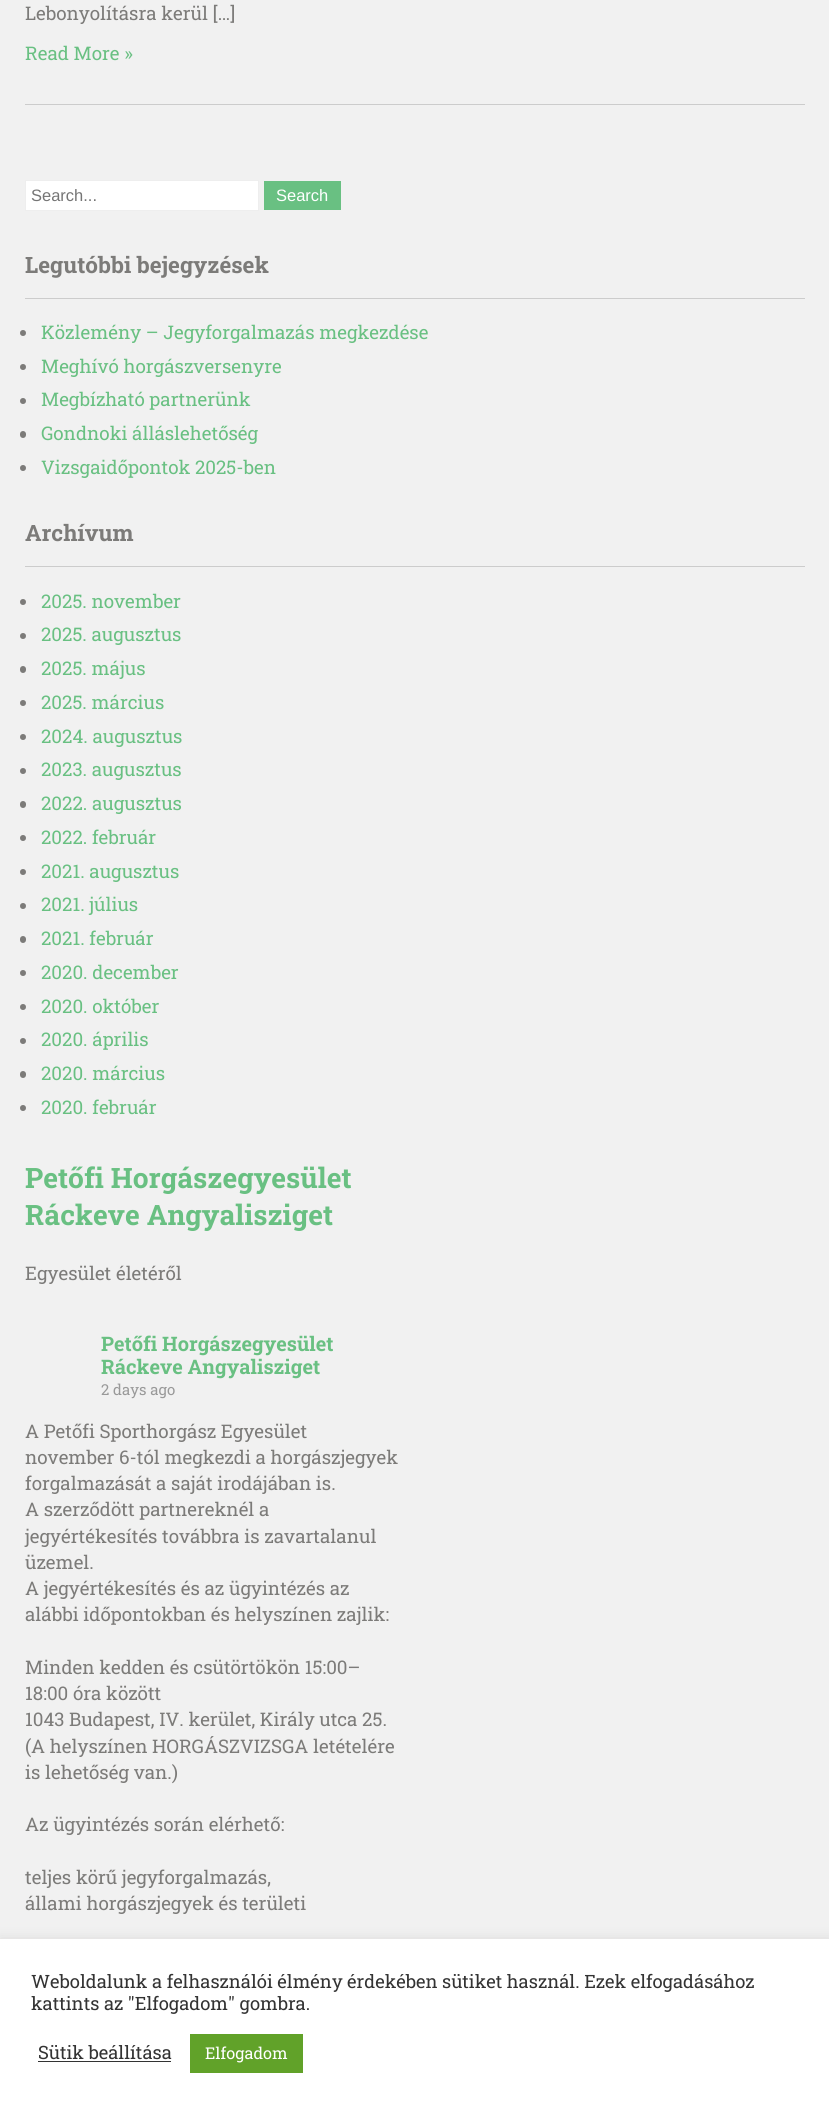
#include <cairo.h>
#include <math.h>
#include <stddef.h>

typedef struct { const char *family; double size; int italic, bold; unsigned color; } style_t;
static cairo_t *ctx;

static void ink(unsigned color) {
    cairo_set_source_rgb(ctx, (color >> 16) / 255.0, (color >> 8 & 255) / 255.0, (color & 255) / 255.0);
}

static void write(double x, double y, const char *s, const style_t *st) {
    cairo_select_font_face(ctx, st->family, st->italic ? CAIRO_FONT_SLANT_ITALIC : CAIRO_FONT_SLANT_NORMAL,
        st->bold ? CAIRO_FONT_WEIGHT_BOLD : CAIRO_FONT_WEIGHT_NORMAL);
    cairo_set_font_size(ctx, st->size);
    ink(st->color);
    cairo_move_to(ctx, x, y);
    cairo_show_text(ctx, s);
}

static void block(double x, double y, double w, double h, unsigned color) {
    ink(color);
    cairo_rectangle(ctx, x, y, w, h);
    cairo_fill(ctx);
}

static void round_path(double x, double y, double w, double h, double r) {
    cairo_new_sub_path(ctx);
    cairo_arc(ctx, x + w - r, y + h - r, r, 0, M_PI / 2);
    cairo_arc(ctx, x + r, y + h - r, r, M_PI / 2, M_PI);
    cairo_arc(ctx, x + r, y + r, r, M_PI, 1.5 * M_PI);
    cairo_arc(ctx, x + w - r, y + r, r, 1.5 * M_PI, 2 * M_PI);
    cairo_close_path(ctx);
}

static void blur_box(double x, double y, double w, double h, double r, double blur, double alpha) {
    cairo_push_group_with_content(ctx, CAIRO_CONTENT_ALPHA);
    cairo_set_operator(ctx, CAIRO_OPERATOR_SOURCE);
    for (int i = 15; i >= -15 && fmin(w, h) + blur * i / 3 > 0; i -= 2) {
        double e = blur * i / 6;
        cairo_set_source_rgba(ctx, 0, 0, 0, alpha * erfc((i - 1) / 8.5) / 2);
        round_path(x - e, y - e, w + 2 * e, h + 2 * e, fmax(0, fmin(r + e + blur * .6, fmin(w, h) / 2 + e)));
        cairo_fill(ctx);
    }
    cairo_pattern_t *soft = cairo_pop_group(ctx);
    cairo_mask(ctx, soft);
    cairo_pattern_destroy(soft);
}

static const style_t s1 = {"Roboto Slab", 18.75, 0, 0, 0x7c7b79};
static const style_t s2 = {"Roboto Slab", 18.75, 0, 0, 0x69c082};
static const style_t s3 = {"Liberation Sans", 16.5, 0, 0, 0x757575};
static const style_t s4 = {"Liberation Sans", 16.5, 0, 0, 0xffffff};
static const style_t s5 = {"Roboto Slab", 22.5, 0, 1, 0x7c7b79};
static const style_t s6 = {"Roboto Slab", 28.1, 0, 1, 0x69c082};
static const style_t s7 = {"Roboto Slab", 20, 0, 1, 0x69c082};
static const style_t s8 = {"Roboto Slab", 15, 0, 0, 0x999999};
static const style_t s9 = {"Roboto Slab", 18.35, 0, 0, 0x333333};
static const style_t s10 = {"Roboto Slab", 16.25, 0, 0, 0xffffff};

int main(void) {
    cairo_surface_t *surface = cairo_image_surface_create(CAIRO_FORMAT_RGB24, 829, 2110);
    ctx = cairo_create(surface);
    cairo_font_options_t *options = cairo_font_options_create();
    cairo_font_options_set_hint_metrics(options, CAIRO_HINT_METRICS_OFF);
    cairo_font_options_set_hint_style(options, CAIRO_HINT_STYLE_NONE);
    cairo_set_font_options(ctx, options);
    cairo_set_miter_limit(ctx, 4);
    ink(0xf1f1f1);
    cairo_paint(ctx);
    block(25, 104, 780, 1, 0xcccccc);
    write(25, 20, "Lebonyolításra kerül […]", &s1);
    write(25, 60, "Read More »", &s2);
    ink(0xffffff);
    cairo_rectangle(ctx, 25.5, 180.5, 233, 30);
    cairo_fill_preserve(ctx);
    ink(0xeeeeee);
    cairo_set_line_width(ctx, 1);
    cairo_stroke(ctx);
    write(31, 201, "Search...", &s3);
    block(264, 181, 77, 29, 0x69c082);
    write(276, 201, "Search", &s4);
    block(25, 298, 780, 1, 0xcccccc);
    write(25, 273, "Legutóbbi bejegyzések", &s5);
    cairo_new_path(ctx);
    cairo_arc(ctx, 23, 333, 3, 0, 2 * M_PI);
    cairo_fill(ctx);
    write(41, 339, "Közlemény – Jegyforgalmazás megkezdése", &s2);
    ink(0x7c7b79);
    cairo_new_path(ctx);
    cairo_arc(ctx, 23, 367, 3, 0, 2 * M_PI);
    cairo_fill(ctx);
    write(41, 373, "Meghívó horgászversenyre", &s2);
    ink(0x7c7b79);
    cairo_new_path(ctx);
    cairo_arc(ctx, 23, 401, 3, 0, 2 * M_PI);
    cairo_fill(ctx);
    write(41, 406, "Megbízható partnerünk", &s2);
    ink(0x7c7b79);
    round_path(20, 431, 6, 7, 3);
    cairo_fill(ctx);
    write(41, 440, "Gondnoki álláslehetőség", &s2);
    ink(0x7c7b79);
    cairo_new_path(ctx);
    cairo_arc(ctx, 23, 468, 3, 0, 2 * M_PI);
    cairo_fill(ctx);
    write(41, 474, "Vizsgaidőpontok 2025-ben", &s2);
    block(25, 566, 780, 1, 0xcccccc);
    write(25, 541, "Archívum", &s5);
    cairo_new_path(ctx);
    cairo_arc(ctx, 23, 602, 3, 0, 2 * M_PI);
    cairo_fill(ctx);
    write(41, 608, "2025. november", &s2);
    ink(0x7c7b79);
    cairo_new_path(ctx);
    cairo_arc(ctx, 23, 636, 3, 0, 2 * M_PI);
    cairo_fill(ctx);
    write(41, 641, "2025. augusztus", &s2);
    ink(0x7c7b79);
    round_path(20, 666, 6, 7, 3);
    cairo_fill(ctx);
    write(41, 675, "2025. május", &s2);
    ink(0x7c7b79);
    cairo_new_path(ctx);
    cairo_arc(ctx, 23, 703, 3, 0, 2 * M_PI);
    cairo_fill(ctx);
    write(41, 709, "2025. március", &s2);
    ink(0x7c7b79);
    cairo_new_path(ctx);
    cairo_arc(ctx, 23, 737, 3, 0, 2 * M_PI);
    cairo_fill(ctx);
    write(41, 743, "2024. augusztus", &s2);
    ink(0x7c7b79);
    cairo_new_path(ctx);
    cairo_arc(ctx, 23, 771, 3, 0, 2 * M_PI);
    cairo_fill(ctx);
    write(41, 776, "2023. augusztus", &s2);
    ink(0x7c7b79);
    round_path(20, 801, 6, 7, 3);
    cairo_fill(ctx);
    write(41, 810, "2022. augusztus", &s2);
    ink(0x7c7b79);
    cairo_new_path(ctx);
    cairo_arc(ctx, 23, 838, 3, 0, 2 * M_PI);
    cairo_fill(ctx);
    write(41, 844, "2022. február", &s2);
    ink(0x7c7b79);
    cairo_new_path(ctx);
    cairo_arc(ctx, 23, 872, 3, 0, 2 * M_PI);
    cairo_fill(ctx);
    write(41, 878, "2021. augusztus", &s2);
    ink(0x7c7b79);
    cairo_new_path(ctx);
    cairo_arc(ctx, 23, 906, 3, 0, 2 * M_PI);
    cairo_fill(ctx);
    write(41, 911, "2021. július", &s2);
    ink(0x7c7b79);
    round_path(20, 936, 6, 7, 3);
    cairo_fill(ctx);
    write(41, 945, "2021. február", &s2);
    ink(0x7c7b79);
    cairo_new_path(ctx);
    cairo_arc(ctx, 23, 973, 3, 0, 2 * M_PI);
    cairo_fill(ctx);
    write(41, 979, "2020. december", &s2);
    ink(0x7c7b79);
    cairo_new_path(ctx);
    cairo_arc(ctx, 23, 1007, 3, 0, 2 * M_PI);
    cairo_fill(ctx);
    write(41, 1013, "2020. október", &s2);
    ink(0x7c7b79);
    cairo_new_path(ctx);
    cairo_arc(ctx, 23, 1041, 3, 0, 2 * M_PI);
    cairo_fill(ctx);
    write(41, 1046, "2020. április", &s2);
    ink(0x7c7b79);
    round_path(20, 1071, 6, 7, 3);
    cairo_fill(ctx);
    write(41, 1080, "2020. március", &s2);
    ink(0x7c7b79);
    cairo_new_path(ctx);
    cairo_arc(ctx, 23, 1108, 3, 0, 2 * M_PI);
    cairo_fill(ctx);
    write(41, 1114, "2020. február", &s2);
    write(25, 1188, "Petőfi Horgászegyesület", &s6);
    write(25, 1225, "Ráckeve Angyalisziget", &s6);
    write(25, 1280, "Egyesület életéről", &s1);
    write(101, 1351, "Petőfi Horgászegyesület", &s7);
    write(101, 1374, "Ráckeve Angyalisziget", &s7);
    write(101, 1395, "2 days ago", &s8);
    write(25, 1438, "A Petőfi Sporthorgász Egyesület", &s1);
    write(25, 1464, "november 6-tól megkezdi a horgászjegyek", &s1);
    write(25, 1490, "forgalmazását a saját irodájában is.", &s1);
    write(25, 1516, "A szerződött partnereknél a", &s1);
    write(25, 1543, "jegyértékesítés továbbra is zavartalanul", &s1);
    write(25, 1569, "üzemel.", &s1);
    write(25, 1595, "A jegyértékesítés és az ügyintézés az", &s1);
    write(25, 1621, "alábbi időpontokban és helyszínen zajlik:", &s1);
    write(25, 1674, "Minden kedden és csütörtökön 15:00–", &s1);
    write(25, 1700, "18:00 óra között", &s1);
    write(25, 1726, "1043 Budapest, IV. kerület, Király utca 25.", &s1);
    write(25, 1753, "(A helyszínen HORGÁSZVIZSGA letételére", &s1);
    write(25, 1779, "is lehetőség van.)", &s1);
    write(25, 1831, "Az ügyintézés során elérhető:", &s1);
    write(25, 1884, "teljes körű jegyforgalmazás,", &s1);
    write(25, 1910, "állami horgászjegyek és területi", &s1);
    ink(0xacabab);
    blur_box(0, 1938, 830, 171, 0, 6, 0.3);
    block(0, 1939, 829, 171, 0xffffff);
    write(31, 1988, "Weboldalunk a felhasználói élmény érdekében sütiket használ. Ezek elfogadásához", &s9);
    write(31, 2010, "kattints az \"Elfogadom\" gombra.", &s9);
    write(38, 2059, "Sütik beállítása", &s9);
    block(38, 2061, 133, 1, 0x333333);
    block(190, 2034, 113, 39, 0x61a229);
    write(205, 2059, "Elfogadom", &s10);
    cairo_surface_write_to_png(surface, "screenshot.png");
    cairo_font_options_destroy(options);
    cairo_destroy(ctx);
    cairo_surface_destroy(surface);
    return 0;
}
